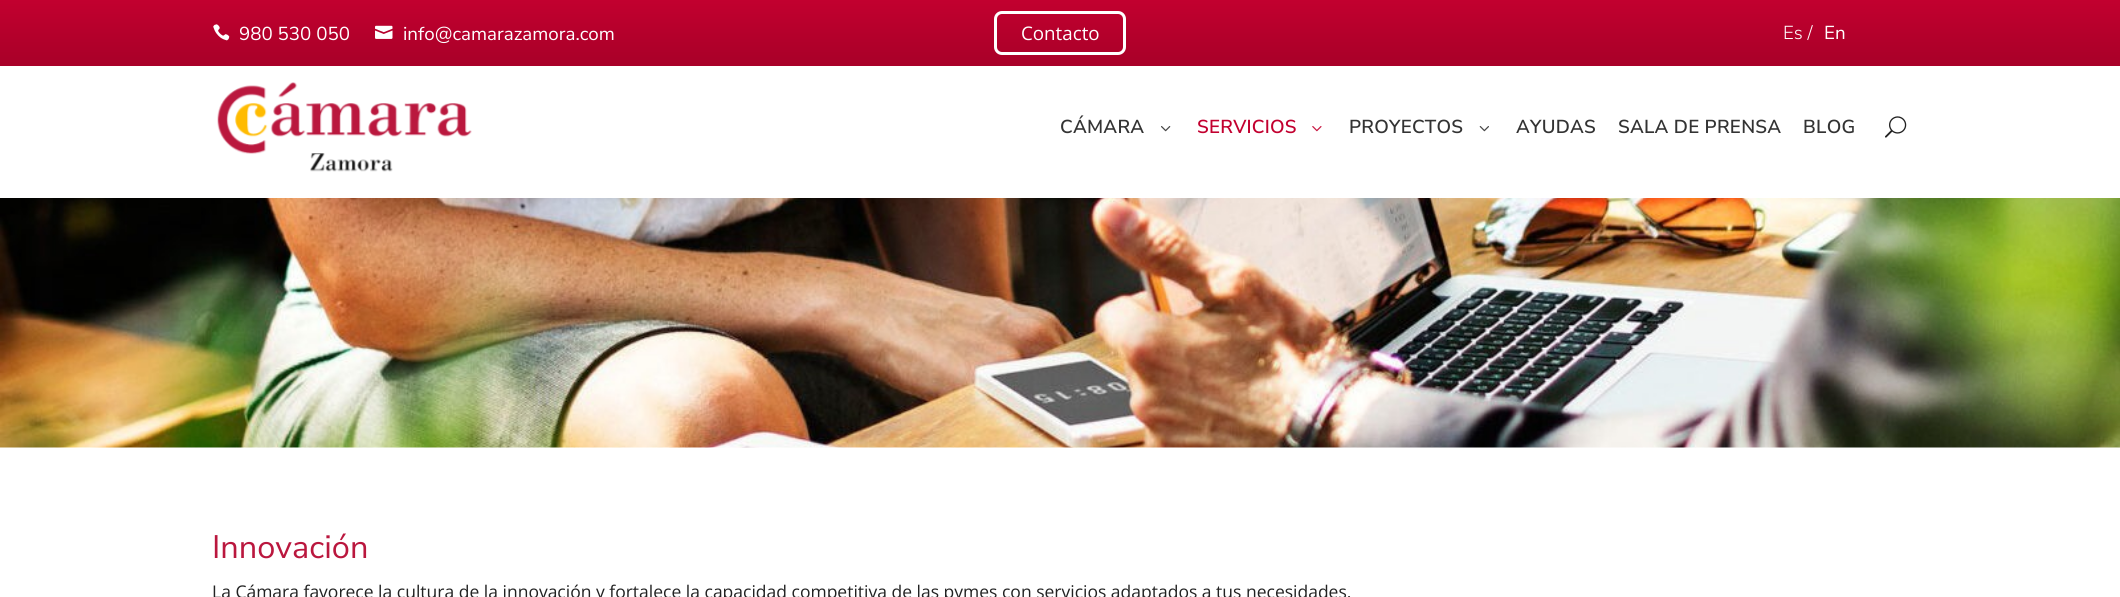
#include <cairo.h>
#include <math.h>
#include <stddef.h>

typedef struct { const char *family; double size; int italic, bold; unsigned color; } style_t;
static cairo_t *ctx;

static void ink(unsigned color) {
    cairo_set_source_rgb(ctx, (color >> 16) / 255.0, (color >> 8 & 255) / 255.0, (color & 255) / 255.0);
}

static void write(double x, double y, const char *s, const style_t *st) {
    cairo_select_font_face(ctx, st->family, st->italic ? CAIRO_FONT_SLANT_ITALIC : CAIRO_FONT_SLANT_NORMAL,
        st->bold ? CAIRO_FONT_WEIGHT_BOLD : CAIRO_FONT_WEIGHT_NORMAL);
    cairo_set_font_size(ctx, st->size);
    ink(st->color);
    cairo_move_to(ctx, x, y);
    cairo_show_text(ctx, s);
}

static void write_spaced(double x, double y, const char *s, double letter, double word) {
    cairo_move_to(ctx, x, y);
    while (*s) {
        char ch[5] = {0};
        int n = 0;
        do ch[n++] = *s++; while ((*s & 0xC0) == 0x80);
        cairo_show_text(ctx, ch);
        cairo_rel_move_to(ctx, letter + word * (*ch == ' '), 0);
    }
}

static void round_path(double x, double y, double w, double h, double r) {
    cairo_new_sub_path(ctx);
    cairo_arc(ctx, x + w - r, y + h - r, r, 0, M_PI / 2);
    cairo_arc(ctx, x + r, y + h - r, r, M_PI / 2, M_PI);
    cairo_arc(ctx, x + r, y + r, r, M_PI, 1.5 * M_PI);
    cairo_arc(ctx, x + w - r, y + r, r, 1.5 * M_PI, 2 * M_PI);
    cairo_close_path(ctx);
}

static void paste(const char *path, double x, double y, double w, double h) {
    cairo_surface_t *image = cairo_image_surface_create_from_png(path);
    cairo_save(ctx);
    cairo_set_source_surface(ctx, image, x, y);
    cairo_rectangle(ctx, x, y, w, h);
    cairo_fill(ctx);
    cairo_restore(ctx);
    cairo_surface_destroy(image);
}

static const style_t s1 = {"Nunito Sans", 18.75, 0, 0, 0xffffff};
static const style_t s2 = {"Open Sans", 18.75, 0, 0, 0xffffff};
static const style_t s3 = {"Nunito Sans Light", 18.75, 0, 0, 0xffffff};
static const style_t s4 = {"Nunito Sans", 32.5, 0, 0, 0xba173e};
static const style_t s5 = {"Open Sans", 17.5, 0, 0, 0x222222};

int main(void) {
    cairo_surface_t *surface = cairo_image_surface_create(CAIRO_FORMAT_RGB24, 2120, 597);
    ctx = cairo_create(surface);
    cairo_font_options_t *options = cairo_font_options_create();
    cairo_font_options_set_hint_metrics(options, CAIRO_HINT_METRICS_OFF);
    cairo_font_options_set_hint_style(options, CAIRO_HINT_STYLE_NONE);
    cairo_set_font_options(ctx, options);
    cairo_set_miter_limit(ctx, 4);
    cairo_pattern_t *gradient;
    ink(0xffffff);
    cairo_paint(ctx);
    gradient = cairo_pattern_create_linear(1060, 0, 1060, 66);
    cairo_pattern_add_color_stop_rgba(gradient, 0, 0.761, 0, 0.184, 1);
    cairo_pattern_add_color_stop_rgba(gradient, 1, 0.659, 0, 0.157, 1);
    cairo_set_source(ctx, gradient);
    cairo_pattern_destroy(gradient);
    cairo_rectangle(ctx, 0, 0, 2120, 66);
    cairo_fill(ctx);
    paste("pic1.png", 213, 24, 17, 17);
    write(239, 40, "980 530 050", &s1);
    paste("pic2.png", 375, 25, 18, 14);
    write(403, 40, "info@camarazamora.com", &s1);
    round_path(995.5, 12.5, 129, 41, 6.5);
    cairo_set_line_width(ctx, 3);
    cairo_stroke(ctx);
    write(1021, 40, "Contacto", &s2);
    write(1783, 39, "Es /", &s3);
    write(1824, 39, "En", &s1);
    paste("pic3.png", 217, 82, 255, 90);
    cairo_select_font_face(ctx, "Nunito Sans SemiBold", CAIRO_FONT_SLANT_NORMAL, CAIRO_FONT_WEIGHT_NORMAL);
    ink(0x333333);
    write_spaced(1060, 133, "CÁMARA", 0.25, 0);
    paste("pic4.png", 1161, 126, 10, 6);
    ink(0xc2002f);
    write_spaced(1197, 133, "SERVICIOS", 0.25, 0);
    paste("pic5.png", 1312, 126, 10, 6);
    ink(0x333333);
    write_spaced(1349, 133, "PROYECTOS", 0.25, 0);
    paste("pic6.png", 1479, 126, 10, 6);
    write_spaced(1516, 133, "AYUDAS", 0.25, 0);
    write_spaced(1618, 133, "SALA DE PRENSA", 0.25, 0);
    write_spaced(1803, 133, "BLOG", 0.25, 0);
    paste("pic7.png", 1885, 116, 22, 22);
    paste("pic8.png", 0, 198, 2120, 250);
    write(212, 558, "Innovación", &s4);
    write(212, 598, "La Cámara favorece la cultura de la innovación y fortalece la capacidad competitiva de las pymes con servicios adaptados a tus necesidades.", &s5);
    cairo_surface_write_to_png(surface, "screenshot.png");
    cairo_font_options_destroy(options);
    cairo_destroy(ctx);
    cairo_surface_destroy(surface);
    return 0;
}
